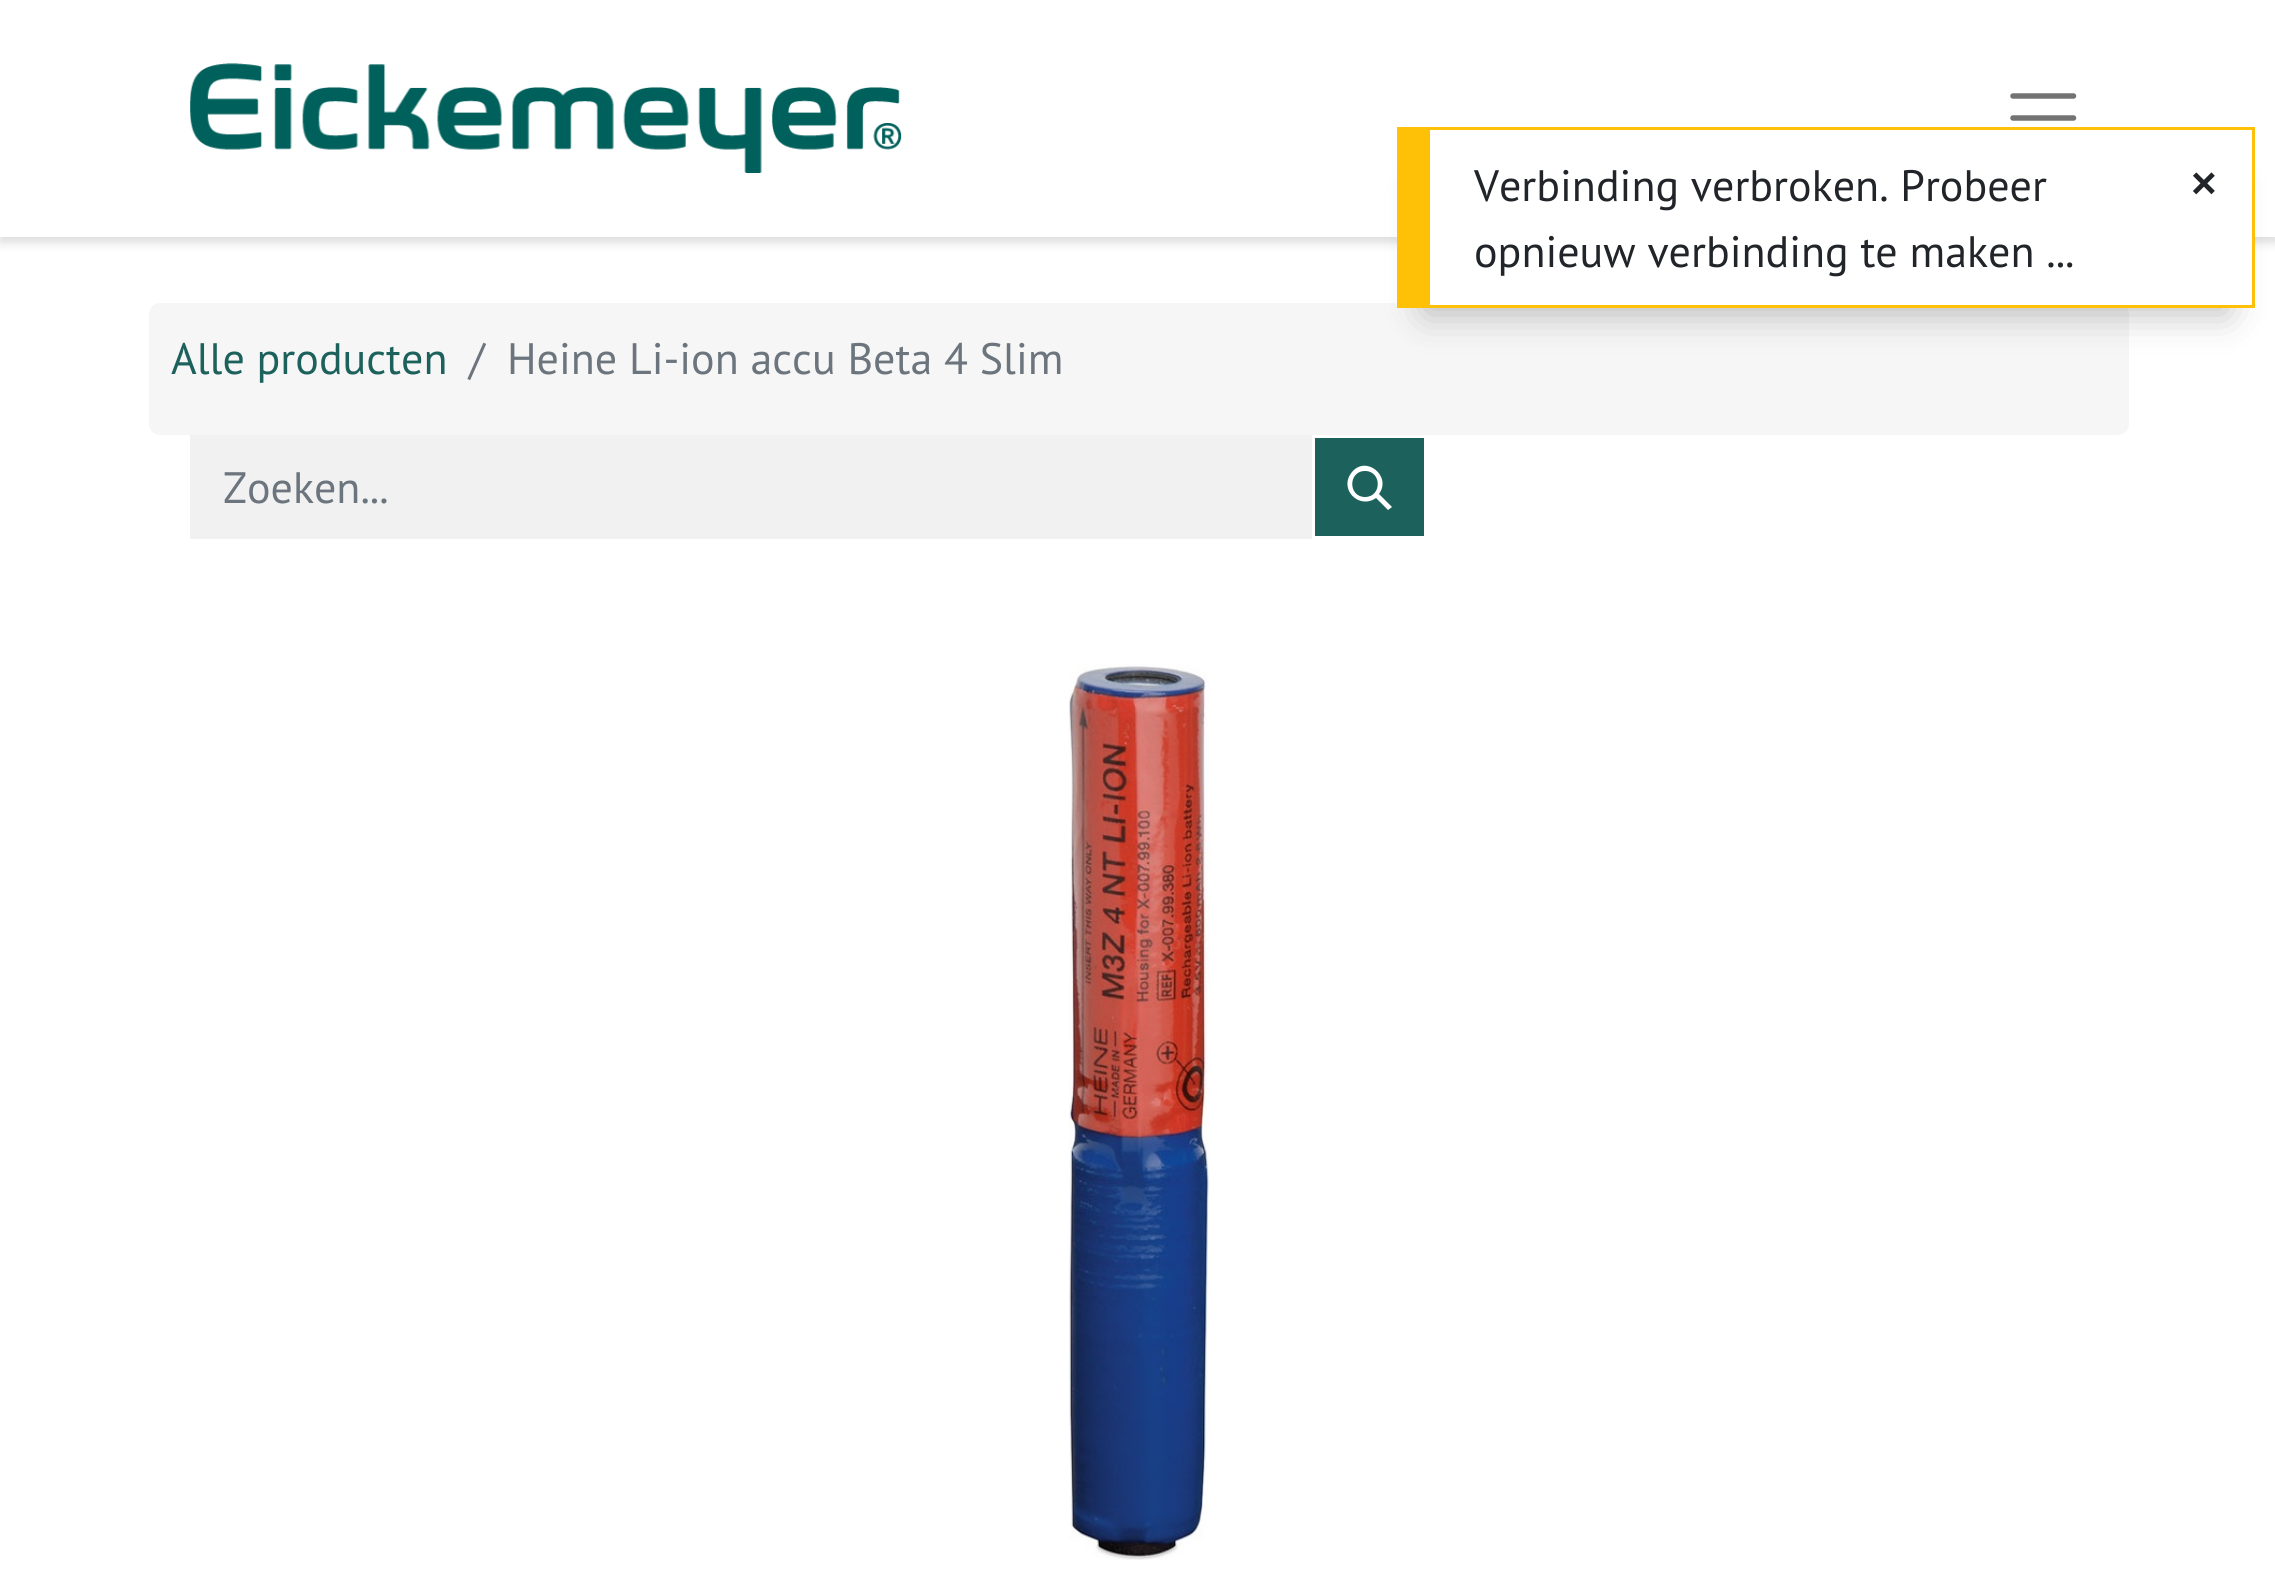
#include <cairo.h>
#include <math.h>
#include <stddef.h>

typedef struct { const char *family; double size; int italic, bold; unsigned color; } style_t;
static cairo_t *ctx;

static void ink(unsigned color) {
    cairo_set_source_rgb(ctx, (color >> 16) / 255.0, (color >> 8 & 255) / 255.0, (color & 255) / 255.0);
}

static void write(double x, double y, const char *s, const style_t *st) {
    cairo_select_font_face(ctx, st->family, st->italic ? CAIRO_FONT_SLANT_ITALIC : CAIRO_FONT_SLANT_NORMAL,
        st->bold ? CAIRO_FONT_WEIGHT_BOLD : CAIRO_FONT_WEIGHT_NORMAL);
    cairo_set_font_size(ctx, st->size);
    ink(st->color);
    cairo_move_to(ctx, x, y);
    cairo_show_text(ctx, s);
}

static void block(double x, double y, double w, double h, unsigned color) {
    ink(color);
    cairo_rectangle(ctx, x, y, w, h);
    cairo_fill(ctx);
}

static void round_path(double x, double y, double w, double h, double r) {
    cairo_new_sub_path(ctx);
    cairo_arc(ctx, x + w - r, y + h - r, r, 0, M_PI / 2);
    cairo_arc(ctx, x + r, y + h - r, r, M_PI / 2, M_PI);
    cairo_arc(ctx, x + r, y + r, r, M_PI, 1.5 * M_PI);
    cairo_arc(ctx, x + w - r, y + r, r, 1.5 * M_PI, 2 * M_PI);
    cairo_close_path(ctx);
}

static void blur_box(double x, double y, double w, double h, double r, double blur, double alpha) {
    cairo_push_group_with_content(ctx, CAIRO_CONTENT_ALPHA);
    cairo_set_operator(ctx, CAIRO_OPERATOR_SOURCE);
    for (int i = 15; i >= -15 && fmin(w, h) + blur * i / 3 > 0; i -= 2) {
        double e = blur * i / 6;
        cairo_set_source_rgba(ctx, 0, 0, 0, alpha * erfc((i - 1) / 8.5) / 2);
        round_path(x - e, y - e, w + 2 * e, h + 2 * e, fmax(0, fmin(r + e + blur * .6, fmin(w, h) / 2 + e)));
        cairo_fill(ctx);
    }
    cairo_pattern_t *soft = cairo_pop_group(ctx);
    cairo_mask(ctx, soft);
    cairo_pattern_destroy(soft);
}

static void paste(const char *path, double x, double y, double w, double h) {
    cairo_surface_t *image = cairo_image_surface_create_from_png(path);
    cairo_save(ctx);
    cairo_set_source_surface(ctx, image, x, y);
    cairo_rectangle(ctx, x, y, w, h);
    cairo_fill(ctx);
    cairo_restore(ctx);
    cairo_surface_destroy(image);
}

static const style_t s1 = {"PT Sans", 44, 0, 0, 0x212529};
static const style_t s2 = {"Liberation Sans", 44, 0, 1, 0x212529};
static const style_t s3 = {"PT Sans", 44, 0, 0, 0x1c615c};
static const style_t s4 = {"PT Sans", 44, 0, 0, 0x6c757d};

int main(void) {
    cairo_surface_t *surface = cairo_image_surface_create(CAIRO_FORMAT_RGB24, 2275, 1585);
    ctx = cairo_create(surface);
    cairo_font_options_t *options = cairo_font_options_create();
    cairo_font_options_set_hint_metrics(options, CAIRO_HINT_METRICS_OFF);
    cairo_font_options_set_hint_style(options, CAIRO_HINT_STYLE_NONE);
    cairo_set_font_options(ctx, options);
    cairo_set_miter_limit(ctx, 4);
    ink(0xffffff);
    cairo_paint(ctx);
    ink(0x000000);
    blur_box(0, 6, 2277, 236, 0, 5.5, 0.15);
    block(0, 0, 2275, 237, 0xffffff);
    cairo_new_path(ctx);
    cairo_move_to(ctx, 2013, 96);
    cairo_line_to(ctx, 2073.5, 96);
    cairo_move_to(ctx, 2013, 118);
    cairo_line_to(ctx, 2073.5, 118);
    cairo_move_to(ctx, 2013, 140);
    cairo_line_to(ctx, 2073.5, 140);
    ink(0x737373);
    cairo_set_line_width(ctx, 5.5);
    cairo_set_line_cap(ctx, CAIRO_LINE_CAP_ROUND);
    cairo_stroke(ctx);
    ink(0xf6f6f6);
    round_path(149, 303, 1980, 132, 11);
    cairo_fill(ctx);
    ink(0x000000);
    blur_box(1425, 187, 803, 127, 0, 19, 0.25);
    block(1430, 137, 822, 168, 0xffffff);
    block(1430, 127, 825, 3, 0xffc107);
    block(2252, 127, 3, 181, 0xffc107);
    block(1430, 305, 825, 3, 0xffc107);
    block(1397, 127, 33, 181, 0xffc107);
    write(1474, 201, "Verbinding verbroken. Probeer", &s1);
    write(1474, 267, "opnieuw verbinding te maken ...", &s1);
    write(2191, 198, "×", &s2);
    paste("pic1.png", 190, 63, 712, 110);
    write(171, 374, "Alle producten", &s3);
    write(469, 374, "/", &s4);
    write(507, 374, "Heine Li-ion accu Beta 4 Slim", &s4);
    block(190, 435, 1122, 104, 0xf1f1f1);
    write(223, 503, "Zoeken...", &s4);
    block(1315, 438, 109, 98, 0x1c615c);
    ink(0xffffff);
    cairo_new_path(ctx);
    cairo_move_to(ctx, 1352, 472);
    cairo_curve_to(ctx, 1366, 455, 1392, 476, 1379, 494);
    cairo_line_to(ctx, 1392, 507);
    cairo_line_to(ctx, 1388, 510);
    cairo_line_to(ctx, 1376, 498);
    cairo_curve_to(ctx, 1359, 510, 1338, 489, 1352, 472);
    cairo_close_path(ctx);
    cairo_move_to(ctx, 1365, 471);
    cairo_curve_to(ctx, 1348, 471, 1348, 497, 1365, 497);
    cairo_curve_to(ctx, 1382, 497, 1382, 471, 1365, 471);
    cairo_close_path(ctx);
    cairo_fill(ctx);
    paste("pic2.png", 1069, 664, 140, 896);
    cairo_surface_write_to_png(surface, "screenshot.png");
    cairo_font_options_destroy(options);
    cairo_destroy(ctx);
    cairo_surface_destroy(surface);
    return 0;
}
